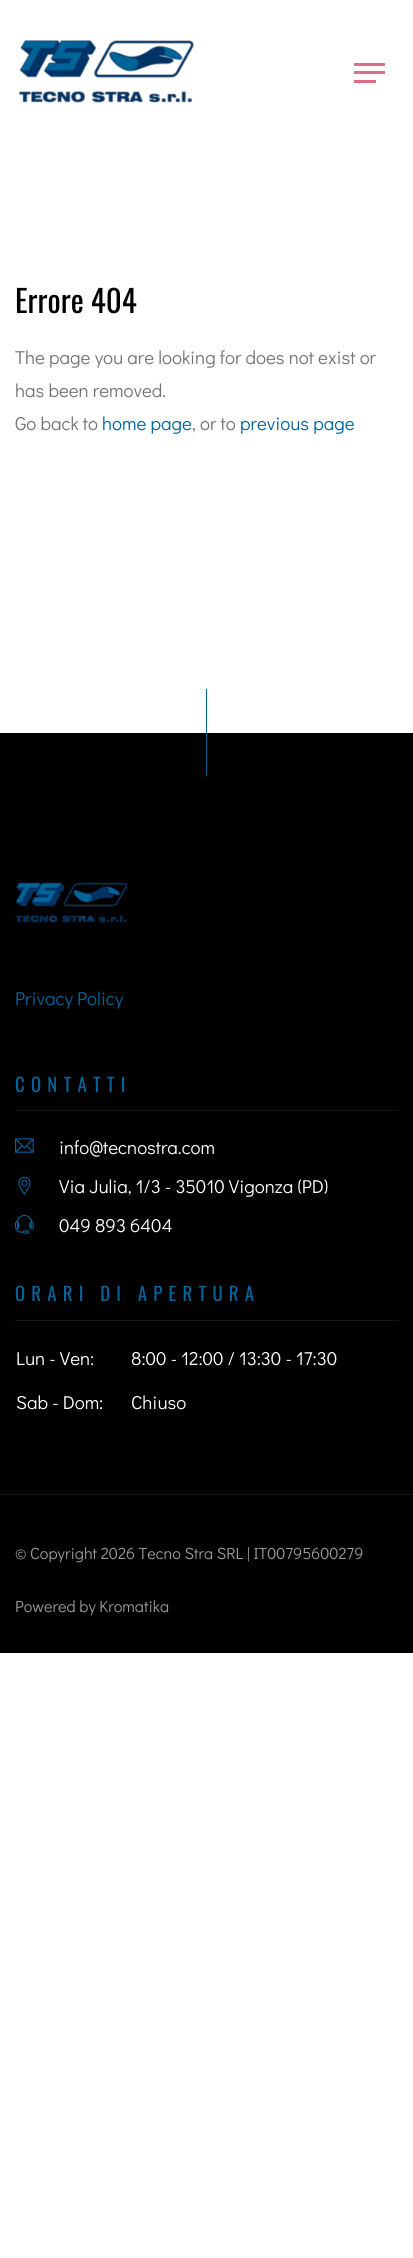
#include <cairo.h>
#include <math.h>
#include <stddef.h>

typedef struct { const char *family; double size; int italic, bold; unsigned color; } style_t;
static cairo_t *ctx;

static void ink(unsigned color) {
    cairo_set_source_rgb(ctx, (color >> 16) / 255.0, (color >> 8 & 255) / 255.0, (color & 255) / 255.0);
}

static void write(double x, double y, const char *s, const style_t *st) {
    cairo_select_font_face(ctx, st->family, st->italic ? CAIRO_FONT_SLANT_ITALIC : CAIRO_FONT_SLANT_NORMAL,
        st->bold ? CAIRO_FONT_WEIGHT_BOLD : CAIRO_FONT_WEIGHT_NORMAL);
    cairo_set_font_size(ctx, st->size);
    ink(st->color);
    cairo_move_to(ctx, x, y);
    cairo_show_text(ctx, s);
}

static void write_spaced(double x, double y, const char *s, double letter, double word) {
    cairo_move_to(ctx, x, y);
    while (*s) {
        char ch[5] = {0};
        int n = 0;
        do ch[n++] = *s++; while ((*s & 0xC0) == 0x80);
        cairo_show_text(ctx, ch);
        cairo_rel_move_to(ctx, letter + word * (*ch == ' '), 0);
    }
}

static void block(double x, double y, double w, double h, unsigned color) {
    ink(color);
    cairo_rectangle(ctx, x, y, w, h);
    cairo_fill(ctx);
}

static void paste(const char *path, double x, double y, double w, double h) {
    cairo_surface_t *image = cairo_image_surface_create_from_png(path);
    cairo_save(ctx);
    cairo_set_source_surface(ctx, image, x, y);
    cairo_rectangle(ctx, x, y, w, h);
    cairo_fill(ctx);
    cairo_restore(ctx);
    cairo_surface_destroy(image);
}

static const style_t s1 = {"Oswald", 31, 0, 0, 0x000000};
static const style_t s2 = {"Didact Gothic", 18.75, 0, 0, 0x747474};
static const style_t s3 = {"Didact Gothic", 18.75, 0, 0, 0x026499};
static const style_t s4 = {"Didact Gothic", 18.75, 0, 0, 0xffffff};
static const style_t s5 = {"Didact Gothic", 16.25, 0, 0, 0x999999};

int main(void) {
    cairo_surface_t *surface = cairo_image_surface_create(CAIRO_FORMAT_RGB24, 413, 2258);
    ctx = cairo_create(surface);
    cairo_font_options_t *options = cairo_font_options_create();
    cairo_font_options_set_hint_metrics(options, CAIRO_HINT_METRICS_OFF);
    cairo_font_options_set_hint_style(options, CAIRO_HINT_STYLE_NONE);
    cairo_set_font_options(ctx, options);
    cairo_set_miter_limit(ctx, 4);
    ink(0xffffff);
    cairo_paint(ctx);
    paste("pic1.png", 18, 40, 176, 63);
    block(354, 63, 31, 3, 0xdd6e8b);
    block(354, 71, 31, 3, 0xdd6e8b);
    block(354, 80, 22, 3, 0xdd6e8b);
    write(15, 313, "Errore 404", &s1);
    write(15, 364, "The page you are looking for does not exist or", &s2);
    write(15, 397, "has been removed.", &s2);
    write(15, 430, "Go back to", &s2);
    write(102, 430, "home page", &s3);
    write(192, 430, ", or to", &s2);
    write(240, 430, "previous page", &s3);
    block(0, 733, 413, 920, 0x000000);
    block(206, 689, 1, 87, 0x026499);
    paste("pic2.png", 15, 882, 113, 41);
    write(15, 1005, "Privacy Policy", &s3);
    block(15, 1110, 384, 1, 0x141414);
    cairo_select_font_face(ctx, "Oswald", CAIRO_FONT_SLANT_NORMAL, CAIRO_FONT_WEIGHT_NORMAL);
    ink(0x026499);
    write_spaced(15, 1092, "CONTATTI", 6.25, 0);
    paste("pic3.png", 15, 1138, 19, 15);
    write(59, 1154, "info@tecnostra.com", &s4);
    paste("pic4.png", 18, 1176, 13, 19);
    write(59, 1193, "Via Julia, 1/3 - 35010 Vigonza (PD)", &s4);
    paste("pic5.png", 15, 1214, 19, 20);
    write(59, 1232, "049 893 6404", &s4);
    block(15, 1320, 384, 1, 0x141414);
    cairo_select_font_face(ctx, "Oswald", CAIRO_FONT_SLANT_NORMAL, CAIRO_FONT_WEIGHT_NORMAL);
    ink(0x026499);
    write_spaced(15, 1301, "ORARI DI APERTURA", 6.25, 0);
    write(16, 1365, "Lun - Ven:", &s4);
    write(131, 1365, "8:00 - 12:00 / 13:30 - 17:30", &s4);
    write(16, 1409, "Sab - Dom:", &s4);
    write(131, 1409, "Chiuso", &s4);
    block(0, 1494, 413, 1, 0x141414);
    write(15, 1559, "© Copyright 2026 Tecno Stra SRL | IT00795600279", &s5);
    write(15, 1612, "Powered by Kromatika", &s5);
    cairo_surface_write_to_png(surface, "screenshot.png");
    cairo_font_options_destroy(options);
    cairo_destroy(ctx);
    cairo_surface_destroy(surface);
    return 0;
}
